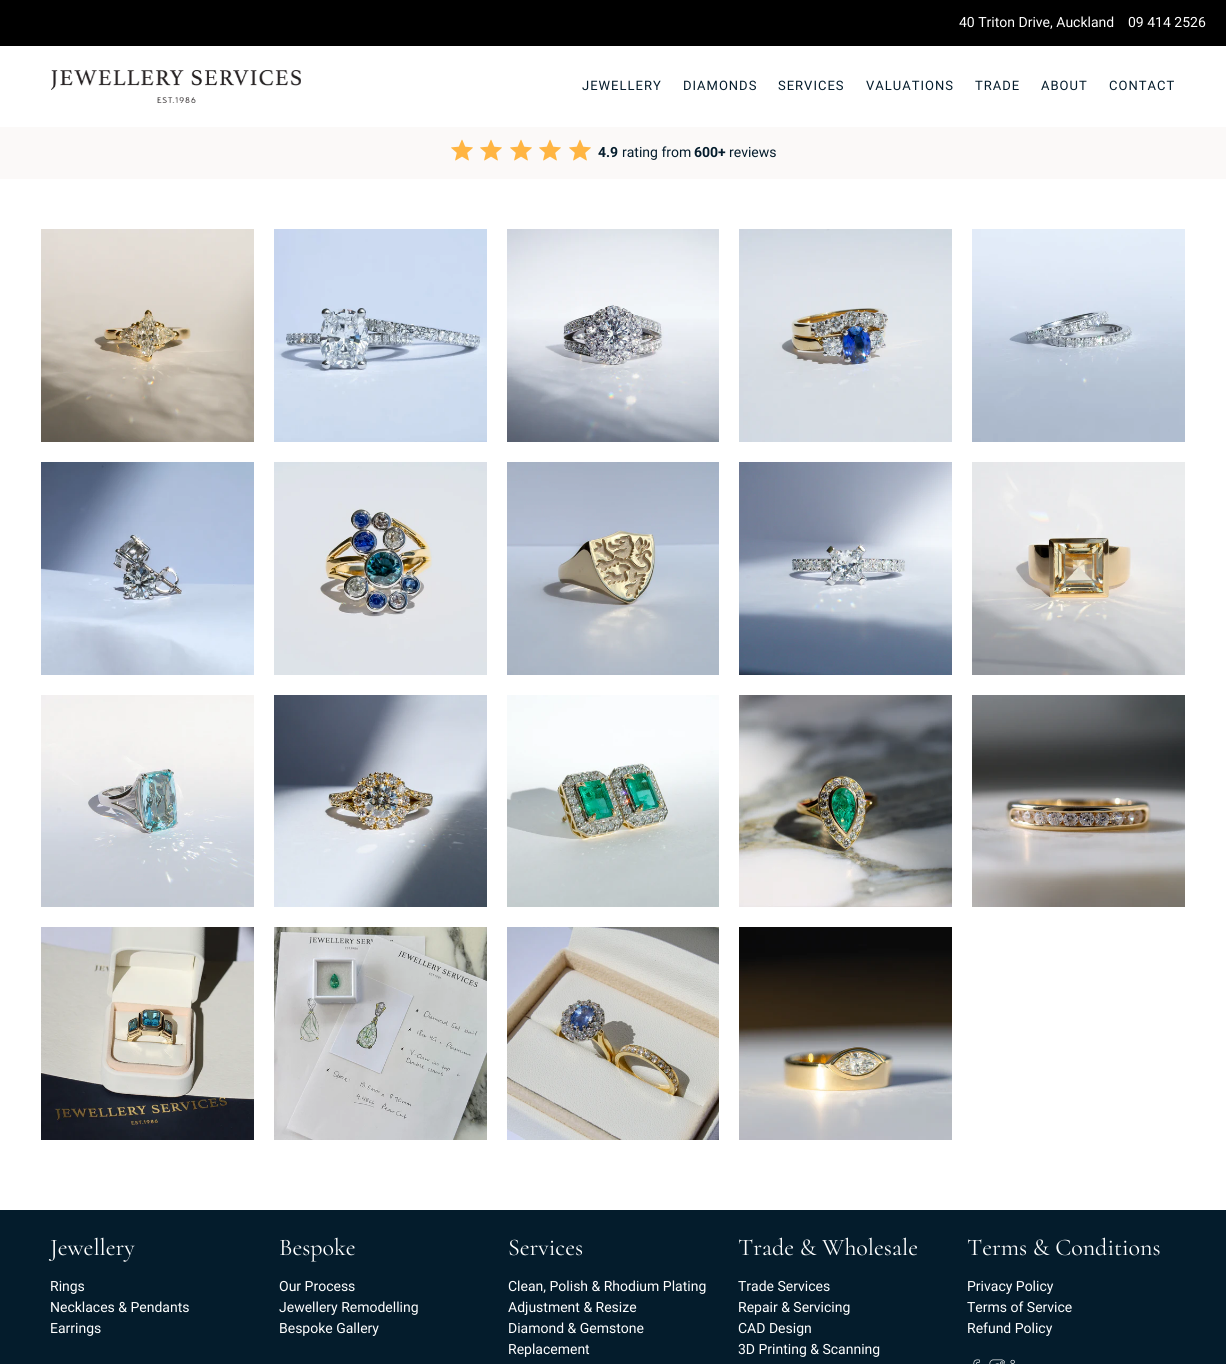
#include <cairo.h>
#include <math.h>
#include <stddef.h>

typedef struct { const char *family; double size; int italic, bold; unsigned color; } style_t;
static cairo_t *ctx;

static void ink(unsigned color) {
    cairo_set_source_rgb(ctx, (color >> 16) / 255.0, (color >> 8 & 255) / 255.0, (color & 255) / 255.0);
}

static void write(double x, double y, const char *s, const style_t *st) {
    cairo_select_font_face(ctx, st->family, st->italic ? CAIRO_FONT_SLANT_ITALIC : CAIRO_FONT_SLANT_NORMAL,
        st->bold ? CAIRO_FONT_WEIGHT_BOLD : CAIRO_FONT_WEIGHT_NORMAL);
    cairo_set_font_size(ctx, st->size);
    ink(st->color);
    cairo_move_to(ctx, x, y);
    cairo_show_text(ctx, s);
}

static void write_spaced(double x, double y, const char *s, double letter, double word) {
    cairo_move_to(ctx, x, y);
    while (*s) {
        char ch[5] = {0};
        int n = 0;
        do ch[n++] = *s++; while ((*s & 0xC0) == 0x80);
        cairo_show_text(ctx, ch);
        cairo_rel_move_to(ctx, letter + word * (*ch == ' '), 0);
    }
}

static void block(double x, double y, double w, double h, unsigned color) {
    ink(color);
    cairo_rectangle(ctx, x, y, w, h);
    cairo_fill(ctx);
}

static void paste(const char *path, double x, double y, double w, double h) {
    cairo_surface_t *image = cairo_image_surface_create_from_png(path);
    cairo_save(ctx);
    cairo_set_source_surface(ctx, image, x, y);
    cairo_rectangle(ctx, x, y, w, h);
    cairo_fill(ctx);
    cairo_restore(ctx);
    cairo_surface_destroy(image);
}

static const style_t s1 = {"Roboto", 14, 0, 0, 0xffffff};
static const style_t s2 = {"Roboto", 14, 0, 1, 0x041c2c};
static const style_t s3 = {"Roboto", 14, 0, 0, 0x041c2c};
static const style_t s4 = {"Cormorant", 24, 0, 0, 0xffffff};

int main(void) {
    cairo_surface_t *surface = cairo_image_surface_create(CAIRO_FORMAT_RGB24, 1226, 1364);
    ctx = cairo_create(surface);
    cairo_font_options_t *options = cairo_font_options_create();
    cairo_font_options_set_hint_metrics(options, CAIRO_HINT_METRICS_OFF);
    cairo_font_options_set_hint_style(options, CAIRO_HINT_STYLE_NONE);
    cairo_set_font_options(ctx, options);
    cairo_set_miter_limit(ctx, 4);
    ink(0xffffff);
    cairo_paint(ctx);
    block(0, 0, 1226, 46, 0x000000);
    write(959, 27, "40 Triton Drive, Auckland", &s1);
    write(1128, 27, "09 414 2526", &s1);
    paste("pic1.png", 51, 70, 250, 33);
    cairo_set_font_size(ctx, 13);
    ink(0x041c2c);
    write_spaced(582, 90, "JEWELLERY", 1, 0);
    write_spaced(683, 90, "DIAMONDS", 1, 0);
    write_spaced(778, 90, "SERVICES", 1, 0);
    write_spaced(866, 90, "VALUATIONS", 1, 0);
    write_spaced(975, 90, "TRADE", 1, 0);
    write_spaced(1041, 90, "ABOUT", 1, 0);
    write_spaced(1109, 90, "CONTACT", 1, 0);
    block(0, 127, 1226, 52, 0xfbf9f8);
    paste("pic2.png", 451, 139, 22, 22);
    paste("pic2.png", 480, 139, 22, 22);
    paste("pic2.png", 510, 139, 22, 22);
    paste("pic2.png", 539, 139, 22, 22);
    paste("pic2.png", 569, 139, 22, 22);
    write(598, 157, "4.9", &s2);
    write(622, 157, "rating from", &s3);
    write(694, 157, "600+", &s2);
    write(729, 157, "reviews", &s3);
    paste("pic3.png", 41, 229, 213, 213);
    paste("pic4.png", 274, 229, 213, 213);
    paste("pic5.png", 507, 229, 212, 213);
    paste("pic6.png", 739, 229, 213, 213);
    paste("pic7.png", 972, 229, 213, 213);
    paste("pic8.png", 41, 462, 213, 213);
    paste("pic9.png", 274, 462, 213, 213);
    paste("pic10.png", 507, 462, 212, 213);
    paste("pic11.png", 739, 462, 213, 213);
    paste("pic12.png", 972, 462, 213, 213);
    paste("pic13.png", 41, 695, 213, 212);
    paste("pic14.png", 274, 695, 213, 212);
    paste("pic15.png", 507, 695, 212, 212);
    paste("pic16.png", 739, 695, 213, 212);
    paste("pic17.png", 972, 695, 213, 212);
    paste("pic18.png", 41, 927, 213, 213);
    paste("pic19.png", 274, 927, 213, 213);
    paste("pic20.png", 507, 927, 212, 213);
    paste("pic21.png", 739, 927, 213, 213);
    block(0, 1210, 1226, 154, 0x041c2c);
    write(50, 1255, "Jewellery", &s4);
    write(50, 1291, "Rings", &s1);
    write(50, 1312, "Necklaces & Pendants", &s1);
    write(50, 1333, "Earrings", &s1);
    write(279, 1255, "Bespoke", &s4);
    write(279, 1291, "Our Process", &s1);
    write(279, 1312, "Jewellery Remodelling", &s1);
    write(279, 1333, "Bespoke Gallery", &s1);
    write(508, 1255, "Services", &s4);
    write(508, 1291, "Clean, Polish & Rhodium Plating", &s1);
    write(508, 1312, "Adjustment & Resize", &s1);
    write(508, 1333, "Diamond & Gemstone", &s1);
    write(508, 1354, "Replacement", &s1);
    write(738, 1255, "Trade & Wholesale", &s4);
    write(738, 1291, "Trade Services", &s1);
    write(738, 1312, "Repair & Servicing", &s1);
    write(738, 1333, "CAD Design", &s1);
    write(738, 1354, "3D Printing & Scanning", &s1);
    write(967, 1255, "Terms & Conditions", &s4);
    write(967, 1291, "Privacy Policy", &s1);
    write(967, 1312, "Terms of Service", &s1);
    write(967, 1333, "Refund Policy", &s1);
    paste("pic22.png", 973, 1359, 7, 5);
    paste("pic23.png", 989, 1359, 16, 5);
    paste("pic24.png", 1010, 1359, 5, 5);
    cairo_surface_write_to_png(surface, "screenshot.png");
    cairo_font_options_destroy(options);
    cairo_destroy(ctx);
    cairo_surface_destroy(surface);
    return 0;
}
